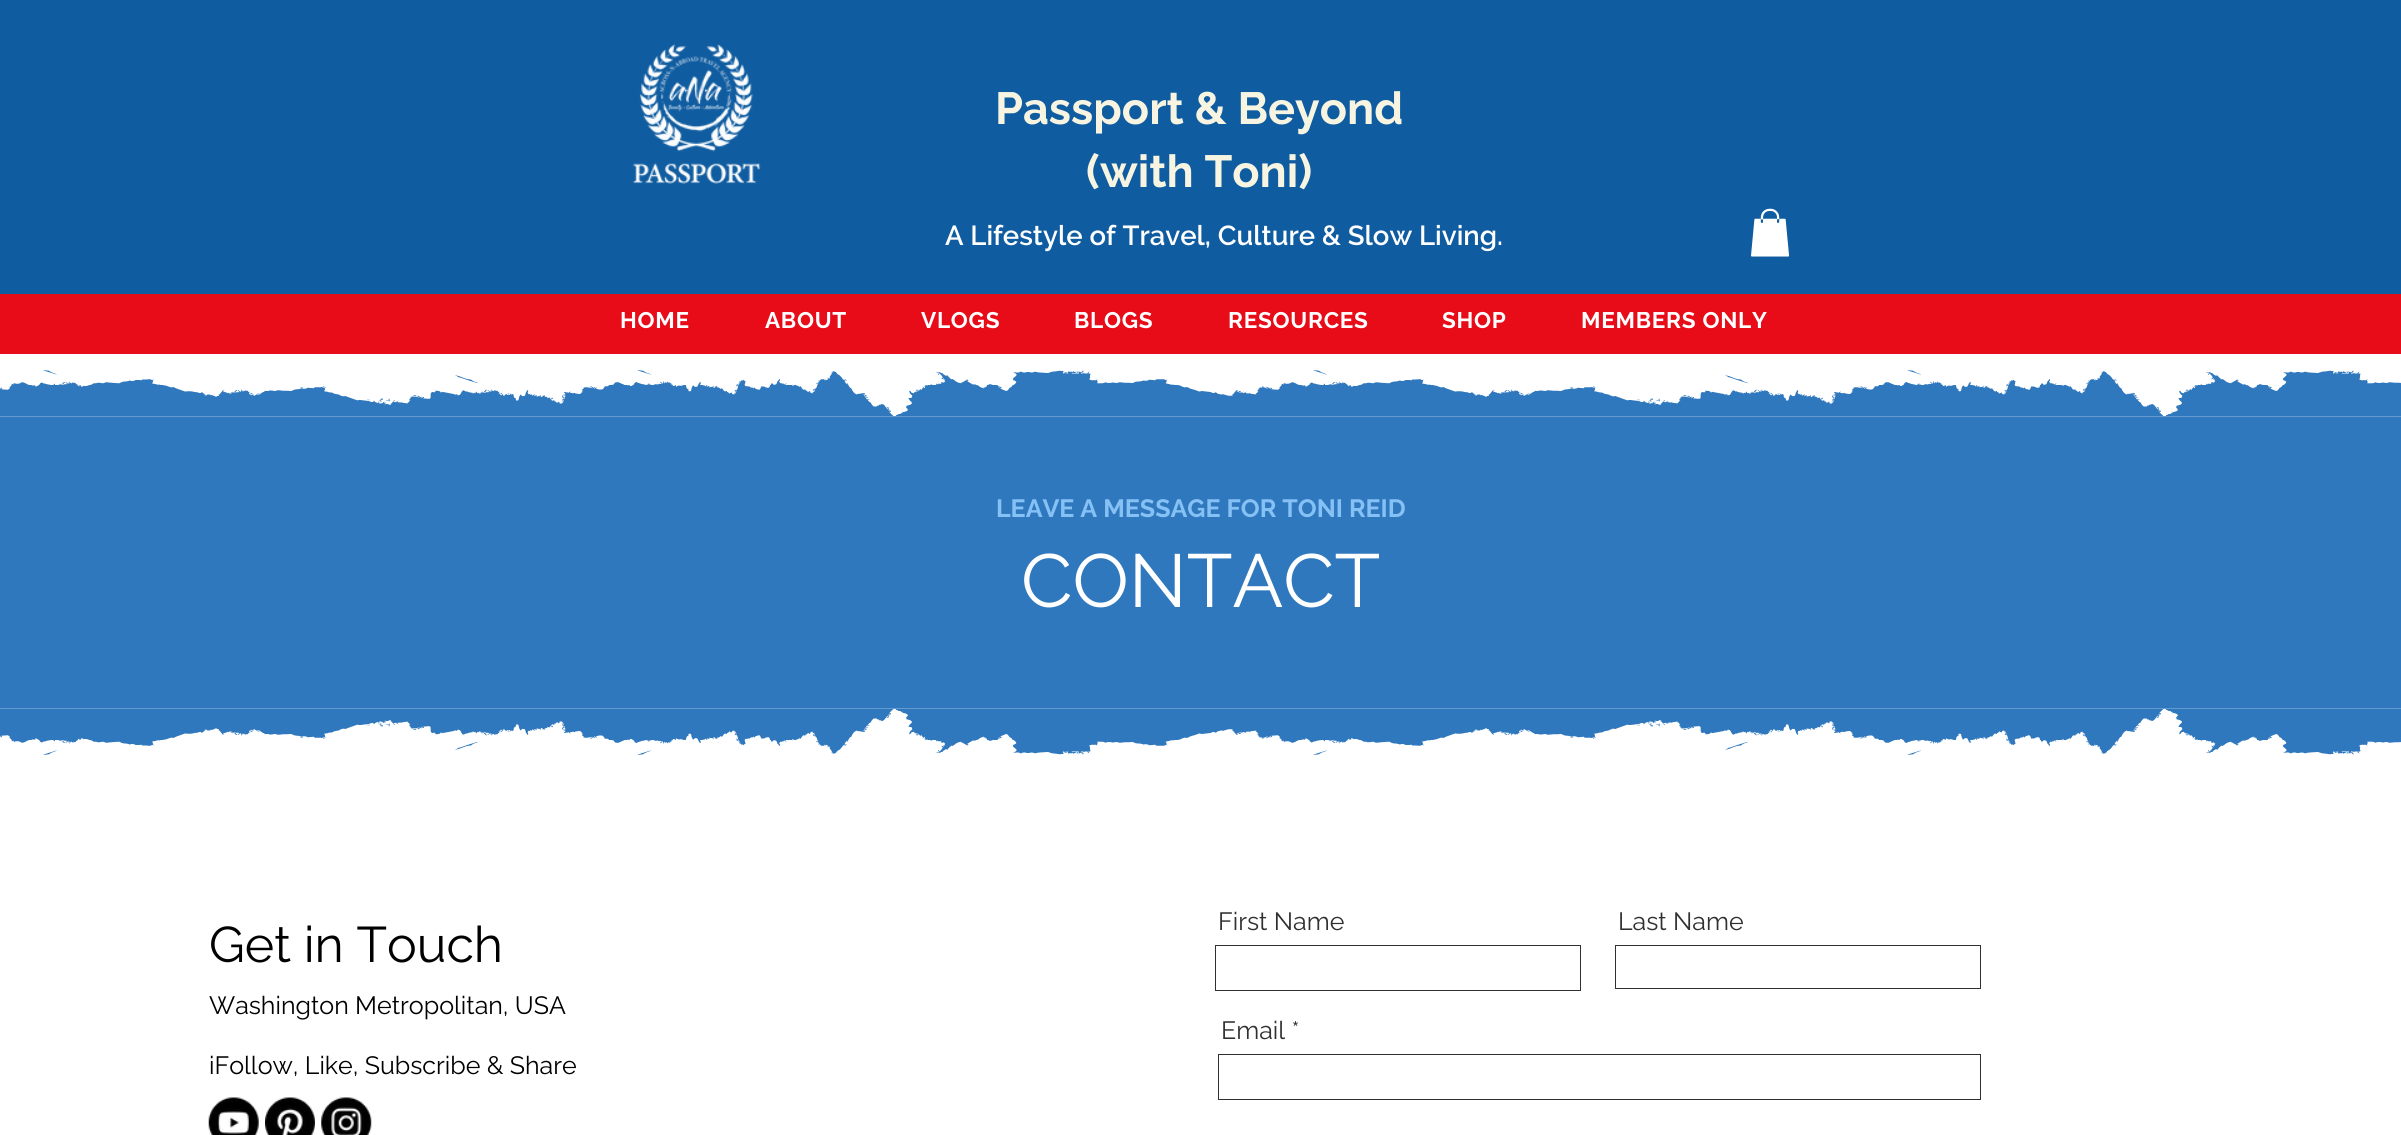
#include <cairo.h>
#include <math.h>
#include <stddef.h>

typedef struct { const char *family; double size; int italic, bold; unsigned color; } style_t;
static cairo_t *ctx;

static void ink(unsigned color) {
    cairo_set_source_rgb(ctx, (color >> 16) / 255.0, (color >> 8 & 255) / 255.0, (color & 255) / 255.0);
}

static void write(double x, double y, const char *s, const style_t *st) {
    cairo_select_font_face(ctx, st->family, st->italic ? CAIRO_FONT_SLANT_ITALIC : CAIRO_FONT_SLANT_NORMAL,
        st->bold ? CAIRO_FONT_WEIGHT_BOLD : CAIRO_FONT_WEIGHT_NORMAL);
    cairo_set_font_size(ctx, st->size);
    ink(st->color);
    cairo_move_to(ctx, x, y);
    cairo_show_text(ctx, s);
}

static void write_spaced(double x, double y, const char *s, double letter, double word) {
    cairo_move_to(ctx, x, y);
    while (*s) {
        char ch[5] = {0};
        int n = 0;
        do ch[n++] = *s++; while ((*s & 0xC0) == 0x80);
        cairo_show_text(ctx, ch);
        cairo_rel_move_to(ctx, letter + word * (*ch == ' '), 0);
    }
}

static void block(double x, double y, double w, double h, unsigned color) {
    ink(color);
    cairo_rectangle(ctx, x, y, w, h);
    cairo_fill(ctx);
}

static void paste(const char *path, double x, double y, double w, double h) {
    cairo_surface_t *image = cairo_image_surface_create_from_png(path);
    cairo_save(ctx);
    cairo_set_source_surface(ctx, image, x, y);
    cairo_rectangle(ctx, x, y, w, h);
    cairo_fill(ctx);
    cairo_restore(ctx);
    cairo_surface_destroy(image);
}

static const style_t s1 = {"Raleway", 45, 0, 1, 0xf7f5e1};
static const style_t s2 = {"Raleway SemiBold", 27.5, 0, 0, 0xffffff};
static const style_t s3 = {"Raleway", 25, 0, 1, 0x86c1f5};
static const style_t s4 = {"Raleway", 75, 0, 0, 0xffffff};
static const style_t s5 = {"Raleway", 50, 0, 0, 0x000000};
static const style_t s6 = {"Raleway", 25, 0, 0, 0x000000};
static const style_t s7 = {"Raleway", 25, 0, 0, 0x303030};

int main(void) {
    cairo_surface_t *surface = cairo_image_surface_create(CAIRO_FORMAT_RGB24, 2401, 1135);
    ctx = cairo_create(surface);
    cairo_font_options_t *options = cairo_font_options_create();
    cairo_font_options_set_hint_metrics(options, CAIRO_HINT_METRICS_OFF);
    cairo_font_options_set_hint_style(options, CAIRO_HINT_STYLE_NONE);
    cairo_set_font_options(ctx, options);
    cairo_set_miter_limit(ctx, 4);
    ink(0x3078be);
    cairo_paint(ctx);
    block(0, 0, 2401, 294, 0x0f5ca0);
    paste("pic1.png", 632, 44, 129, 140);
    write(995, 124, "Passport & Beyond", &s1);
    write(1086, 187, "(with Toni)", &s1);
    write(945, 245, "A Lifestyle of Travel, Culture & Slow Living.", &s2);
    paste("pic2.png", 1751, 208, 39, 49);
    block(0, 294, 2401, 60, 0xe80c19);
    cairo_select_font_face(ctx, "Raleway", CAIRO_FONT_SLANT_NORMAL, CAIRO_FONT_WEIGHT_BOLD);
    cairo_set_font_size(ctx, 22.5);
    ink(0xffffff);
    write_spaced(620, 328, "HOME", 0.75, 0);
    write_spaced(765, 328, "ABOUT", 0.75, 0);
    write_spaced(921, 328, "VLOGS", 0.75, 0);
    write_spaced(1074, 328, "BLOGS", 0.75, 0);
    write_spaced(1228, 328, "RESOURCES", 0.75, 0);
    write_spaced(1442, 328, "SHOP", 0.75, 0);
    write_spaced(1581, 328, "MEMBERS ONLY", 0.75, 0);
    paste("pic3.png", 0, 354, 2401, 63);
    write(996, 517, "LEAVE A MESSAGE FOR TONI REID", &s3);
    write(1021, 607, "CONTACT", &s4);
    paste("pic4.png", 0, 708, 2401, 63);
    block(0, 771, 2401, 364, 0xffffff);
    write(209, 962, "Get in Touch", &s5);
    write(209, 1014, "Washington Metropolitan, USA", &s6);
    write(209, 1074, "iFollow, Like, Subscribe & Share", &s6);
    paste("pic5.png", 208, 1097, 51, 38);
    paste("pic6.png", 265, 1097, 50, 38);
    paste("pic7.png", 321, 1097, 51, 38);
    write(1218, 930, "First Name", &s7);
    cairo_rectangle(ctx, 1215.5, 945.5, 365, 45);
    cairo_set_line_width(ctx, 1);
    cairo_stroke(ctx);
    write(1618, 930, "Last Name", &s7);
    cairo_rectangle(ctx, 1615.5, 945.5, 365, 43);
    cairo_stroke(ctx);
    write(1221, 1039, "Email *", &s7);
    cairo_rectangle(ctx, 1218.5, 1054.5, 762, 45);
    cairo_stroke(ctx);
    cairo_surface_write_to_png(surface, "screenshot.png");
    cairo_font_options_destroy(options);
    cairo_destroy(ctx);
    cairo_surface_destroy(surface);
    return 0;
}
